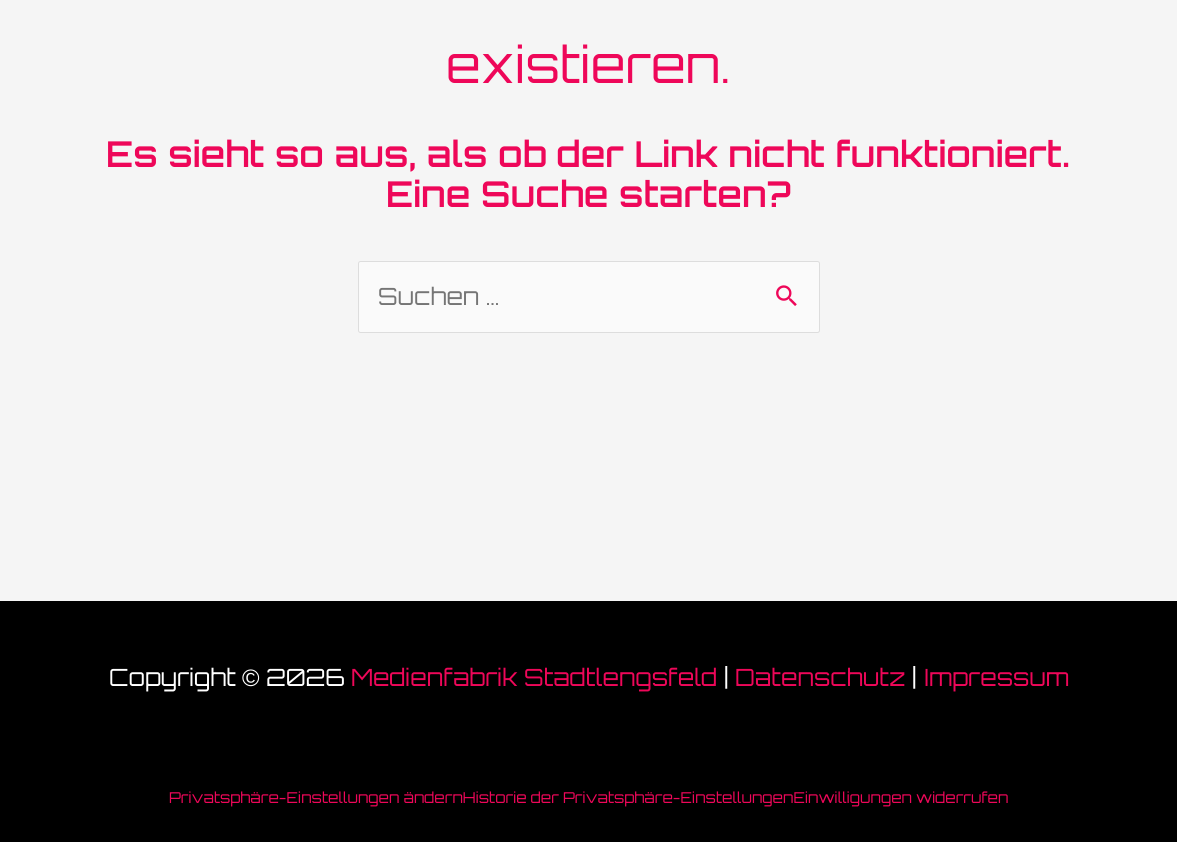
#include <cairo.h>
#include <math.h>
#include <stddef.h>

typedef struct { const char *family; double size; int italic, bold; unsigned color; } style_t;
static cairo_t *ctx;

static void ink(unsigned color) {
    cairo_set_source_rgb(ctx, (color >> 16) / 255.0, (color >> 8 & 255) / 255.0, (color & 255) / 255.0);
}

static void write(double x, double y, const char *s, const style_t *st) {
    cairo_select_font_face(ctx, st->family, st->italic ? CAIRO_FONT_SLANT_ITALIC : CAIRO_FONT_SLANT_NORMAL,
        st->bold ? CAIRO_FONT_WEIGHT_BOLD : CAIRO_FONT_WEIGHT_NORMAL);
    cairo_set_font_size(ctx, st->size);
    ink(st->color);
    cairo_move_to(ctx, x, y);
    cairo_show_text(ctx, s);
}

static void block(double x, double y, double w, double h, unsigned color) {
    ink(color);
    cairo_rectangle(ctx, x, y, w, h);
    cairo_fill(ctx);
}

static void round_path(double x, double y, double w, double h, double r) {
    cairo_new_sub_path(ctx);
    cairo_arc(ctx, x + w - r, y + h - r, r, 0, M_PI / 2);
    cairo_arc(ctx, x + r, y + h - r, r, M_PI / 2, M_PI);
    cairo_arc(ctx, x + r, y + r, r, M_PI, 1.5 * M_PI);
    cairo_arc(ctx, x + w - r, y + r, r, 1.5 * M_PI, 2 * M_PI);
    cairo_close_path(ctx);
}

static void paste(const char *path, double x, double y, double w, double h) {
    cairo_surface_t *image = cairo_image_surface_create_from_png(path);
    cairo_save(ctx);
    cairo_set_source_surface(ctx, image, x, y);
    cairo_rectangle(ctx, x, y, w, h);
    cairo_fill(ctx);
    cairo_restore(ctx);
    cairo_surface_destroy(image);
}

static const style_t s1 = {"Orbitron", 50, 0, 0, 0xee0759};
static const style_t s2 = {"Orbitron SemiBold", 35.6, 0, 0, 0xee0759};
static const style_t s3 = {"Orbitron", 23.75, 0, 0, 0x757575};
static const style_t s4 = {"Orbitron", 23.75, 0, 0, 0xffffff};
static const style_t s5 = {"Liberation Sans", 23.75, 0, 0, 0xffffff};
static const style_t s6 = {"Orbitron", 23.75, 0, 0, 0xee0759};
static const style_t s7 = {"Orbitron", 15, 0, 0, 0xee0759};

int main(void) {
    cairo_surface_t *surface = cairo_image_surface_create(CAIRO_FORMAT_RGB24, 1177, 842);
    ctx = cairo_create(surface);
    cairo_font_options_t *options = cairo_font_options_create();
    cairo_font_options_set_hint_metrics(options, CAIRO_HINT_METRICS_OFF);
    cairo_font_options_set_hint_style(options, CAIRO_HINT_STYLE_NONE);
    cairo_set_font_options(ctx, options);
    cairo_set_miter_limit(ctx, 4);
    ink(0xf5f5f5);
    cairo_paint(ctx);
    write(446, 83, "existieren.", &s1);
    write(106, 167, "Es sieht so aus, als ob der Link nicht funktioniert.", &s2);
    write(386, 207, "Eine Suche starten?", &s2);
    ink(0xfafafa);
    round_path(358.5, 261.5, 461, 71, 2);
    cairo_fill_preserve(ctx);
    ink(0xdddddd);
    cairo_set_line_width(ctx, 1);
    cairo_stroke(ctx);
    write(378, 305, "Suchen …", &s3);
    paste("pic1.png", 776, 285, 21, 21);
    block(0, 601, 1177, 241, 0x000000);
    write(109, 686, "Copyright", &s4);
    write(242, 686, "©", &s5);
    write(266, 686, "2026", &s4);
    write(351, 686, "Medienfabrik Stadtlengsfeld", &s6);
    write(724, 686, "|", &s4);
    write(735, 686, "Datenschutz", &s6);
    write(912, 686, "|", &s4);
    write(924, 686, "Impressum", &s6);
    write(169, 803, "Privatsphäre-Einstellungen ändernHistorie der Privatsphäre-EinstellungenEinwilligungen widerrufen", &s7);
    cairo_surface_write_to_png(surface, "screenshot.png");
    cairo_font_options_destroy(options);
    cairo_destroy(ctx);
    cairo_surface_destroy(surface);
    return 0;
}
